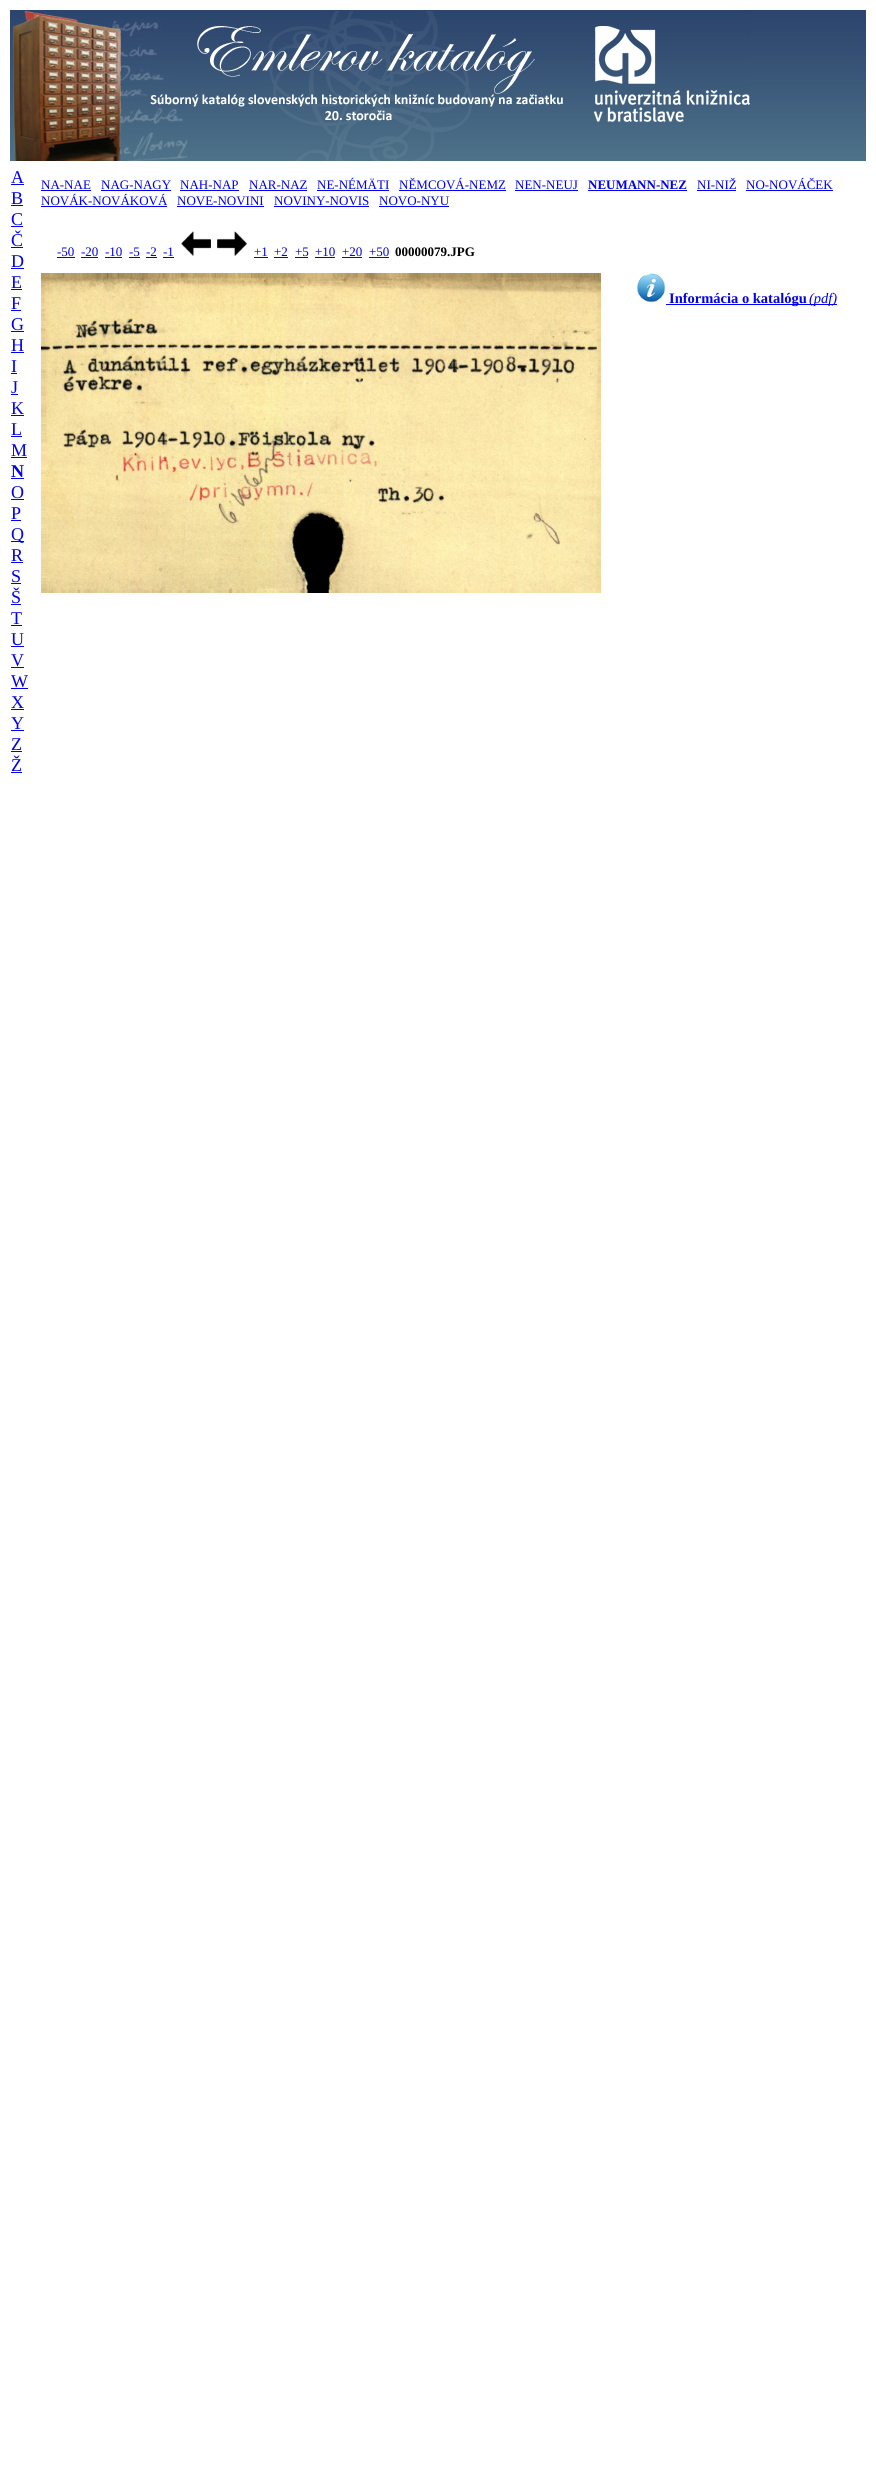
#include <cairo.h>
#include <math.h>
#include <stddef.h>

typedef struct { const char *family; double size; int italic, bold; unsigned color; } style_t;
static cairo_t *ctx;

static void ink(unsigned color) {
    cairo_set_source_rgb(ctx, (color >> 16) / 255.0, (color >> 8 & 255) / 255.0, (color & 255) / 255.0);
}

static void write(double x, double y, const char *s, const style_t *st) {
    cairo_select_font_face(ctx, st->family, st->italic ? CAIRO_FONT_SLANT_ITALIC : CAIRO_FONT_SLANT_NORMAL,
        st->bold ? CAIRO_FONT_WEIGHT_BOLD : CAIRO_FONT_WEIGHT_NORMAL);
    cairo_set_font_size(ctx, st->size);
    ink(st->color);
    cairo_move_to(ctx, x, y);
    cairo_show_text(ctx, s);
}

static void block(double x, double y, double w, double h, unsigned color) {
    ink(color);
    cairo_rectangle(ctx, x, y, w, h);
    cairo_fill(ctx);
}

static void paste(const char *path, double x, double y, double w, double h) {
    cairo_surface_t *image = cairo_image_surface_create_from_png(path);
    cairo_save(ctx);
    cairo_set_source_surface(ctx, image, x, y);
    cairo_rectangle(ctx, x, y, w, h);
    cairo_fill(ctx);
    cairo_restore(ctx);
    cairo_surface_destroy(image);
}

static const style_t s1 = {"Liberation Serif", 18, 0, 0, 0x0000ee};
static const style_t s2 = {"Liberation Serif", 18, 0, 1, 0x0000ee};
static const style_t s3 = {"Liberation Serif", 13, 0, 0, 0x0000ee};
static const style_t s4 = {"Liberation Serif", 13, 0, 1, 0x0000ee};
static const style_t s5 = {"Liberation Serif", 13, 0, 1, 0x000000};
static const style_t s6 = {"Liberation Serif", 14.5, 0, 1, 0x0000ee};
static const style_t s7 = {"Liberation Serif", 14.5, 1, 0, 0x0000ee};

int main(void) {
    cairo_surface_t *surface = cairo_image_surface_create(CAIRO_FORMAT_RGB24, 876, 2469);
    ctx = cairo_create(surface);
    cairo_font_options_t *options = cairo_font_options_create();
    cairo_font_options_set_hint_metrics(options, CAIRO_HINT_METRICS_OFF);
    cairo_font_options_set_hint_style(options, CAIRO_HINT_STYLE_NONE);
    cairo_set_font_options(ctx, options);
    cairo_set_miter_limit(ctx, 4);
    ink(0xffffff);
    cairo_paint(ctx);
    paste("pic1.png", 10, 10, 856, 151);
    paste("pic2.png", 12, 11, 738, 150);
    write(11, 183, "A", &s1);
    block(11, 184, 13, 1, 0x0000ee);
    write(11, 204, "B", &s1);
    block(11, 205, 12, 1, 0x0000ee);
    write(11, 225, "C", &s1);
    block(11, 226, 12, 1, 0x0000ee);
    write(11, 246, "Č", &s1);
    block(11, 247, 12, 1, 0x0000ee);
    write(11, 267, "D", &s1);
    block(11, 268, 13, 1, 0x0000ee);
    write(11, 288, "E", &s1);
    block(11, 289, 11, 1, 0x0000ee);
    write(11, 309, "F", &s1);
    block(11, 310, 10, 1, 0x0000ee);
    write(11, 330, "G", &s1);
    block(11, 331, 13, 1, 0x0000ee);
    write(11, 351, "H", &s1);
    block(11, 352, 13, 1, 0x0000ee);
    write(11, 372, "I", &s1);
    block(11, 373, 6, 1, 0x0000ee);
    write(11, 393, "J", &s1);
    block(11, 394, 7, 1, 0x0000ee);
    write(11, 414, "K", &s1);
    block(11, 415, 13, 1, 0x0000ee);
    write(11, 435, "L", &s1);
    block(11, 436, 11, 1, 0x0000ee);
    write(11, 456, "M", &s1);
    block(11, 457, 16, 1, 0x0000ee);
    write(11, 477, "N", &s2);
    block(11, 478, 13, 1, 0x0000ee);
    write(11, 498, "O", &s1);
    block(11, 499, 13, 1, 0x0000ee);
    write(11, 519, "P", &s1);
    block(11, 520, 10, 1, 0x0000ee);
    block(11, 541, 13, 1, 0x0000ee);
    write(11, 540, "Q", &s1);
    write(11, 561, "R", &s1);
    block(11, 562, 12, 1, 0x0000ee);
    write(11, 582, "S", &s1);
    block(11, 583, 10, 1, 0x0000ee);
    write(11, 603, "Š", &s1);
    block(11, 604, 10, 1, 0x0000ee);
    write(11, 624, "T", &s1);
    block(11, 625, 11, 1, 0x0000ee);
    write(11, 645, "U", &s1);
    block(11, 646, 13, 1, 0x0000ee);
    write(11, 666, "V", &s1);
    block(11, 667, 13, 1, 0x0000ee);
    write(11, 687, "W", &s1);
    block(11, 688, 17, 1, 0x0000ee);
    write(11, 708, "X", &s1);
    block(11, 709, 13, 1, 0x0000ee);
    write(11, 729, "Y", &s1);
    block(11, 730, 13, 1, 0x0000ee);
    write(11, 750, "Z", &s1);
    block(11, 751, 11, 1, 0x0000ee);
    write(11, 771, "Ž", &s1);
    block(11, 772, 11, 1, 0x0000ee);
    write(41, 189, "NA-NAE", &s3);
    block(41, 190, 50, 1, 0x0000ee);
    write(101, 189, "NAG-NAGY", &s3);
    block(101, 190, 70, 1, 0x0000ee);
    write(180, 189, "NAH-NAP", &s3);
    block(180, 190, 59, 1, 0x0000ee);
    write(249, 189, "NAR-NAZ", &s3);
    block(249, 190, 58, 1, 0x0000ee);
    write(317, 189, "NE-NÉMÄTI", &s3);
    block(317, 190, 72, 1, 0x0000ee);
    write(399, 189, "NĚMCOVÁ-NEMZ", &s3);
    block(399, 190, 107, 1, 0x0000ee);
    write(515, 189, "NEN-NEUJ", &s3);
    block(515, 190, 63, 1, 0x0000ee);
    write(588, 189, "NEUMANN-NEZ", &s4);
    block(588, 190, 99, 1, 0x0000ee);
    write(697, 189, "NI-NIŽ", &s3);
    block(697, 190, 39, 1, 0x0000ee);
    write(746, 189, "NO-NOVÁČEK", &s3);
    block(746, 190, 87, 1, 0x0000ee);
    write(41, 205, "NOVÁK-NOVÁKOVÁ", &s3);
    block(41, 206, 126, 1, 0x0000ee);
    write(177, 205, "NOVE-NOVINI", &s3);
    block(177, 206, 87, 1, 0x0000ee);
    write(274, 205, "NOVINY-NOVIS", &s3);
    block(274, 206, 95, 1, 0x0000ee);
    write(379, 205, "NOVO-NYU", &s3);
    block(379, 206, 70, 1, 0x0000ee);
    write(57, 256, "-50", &s3);
    block(57, 257, 18, 1, 0x0000ee);
    write(81, 256, "-20", &s3);
    block(81, 257, 17, 1, 0x0000ee);
    write(105, 256, "-10", &s3);
    block(105, 257, 17, 1, 0x0000ee);
    write(129, 256, "-5", &s3);
    block(129, 257, 11, 1, 0x0000ee);
    write(146, 256, "-2", &s3);
    block(146, 257, 11, 1, 0x0000ee);
    write(163, 256, "-1", &s3);
    block(163, 257, 11, 1, 0x0000ee);
    paste("pic3.png", 181, 231, 30, 25);
    paste("pic4.png", 217, 231, 30, 25);
    write(254, 256, "+1", &s3);
    block(254, 257, 14, 1, 0x0000ee);
    write(274, 256, "+2", &s3);
    block(274, 257, 14, 1, 0x0000ee);
    write(295, 256, "+5", &s3);
    block(295, 257, 13, 1, 0x0000ee);
    write(315, 256, "+10", &s3);
    block(315, 257, 20, 1, 0x0000ee);
    write(342, 256, "+20", &s3);
    block(342, 257, 20, 1, 0x0000ee);
    write(369, 256, "+50", &s3);
    block(369, 257, 20, 1, 0x0000ee);
    write(395, 256, "00000079.JPG", &s5);
    paste("pic5.png", 41, 273, 560, 320);
    paste("pic6.png", 637, 273, 29, 30);
    block(666, 304, 171, 1, 0x0000ee);
    write(669, 303, "Informácia o katalógu", &s6);
    write(809, 303, "(pdf)", &s7);
    cairo_surface_write_to_png(surface, "screenshot.png");
    cairo_font_options_destroy(options);
    cairo_destroy(ctx);
    cairo_surface_destroy(surface);
    return 0;
}
